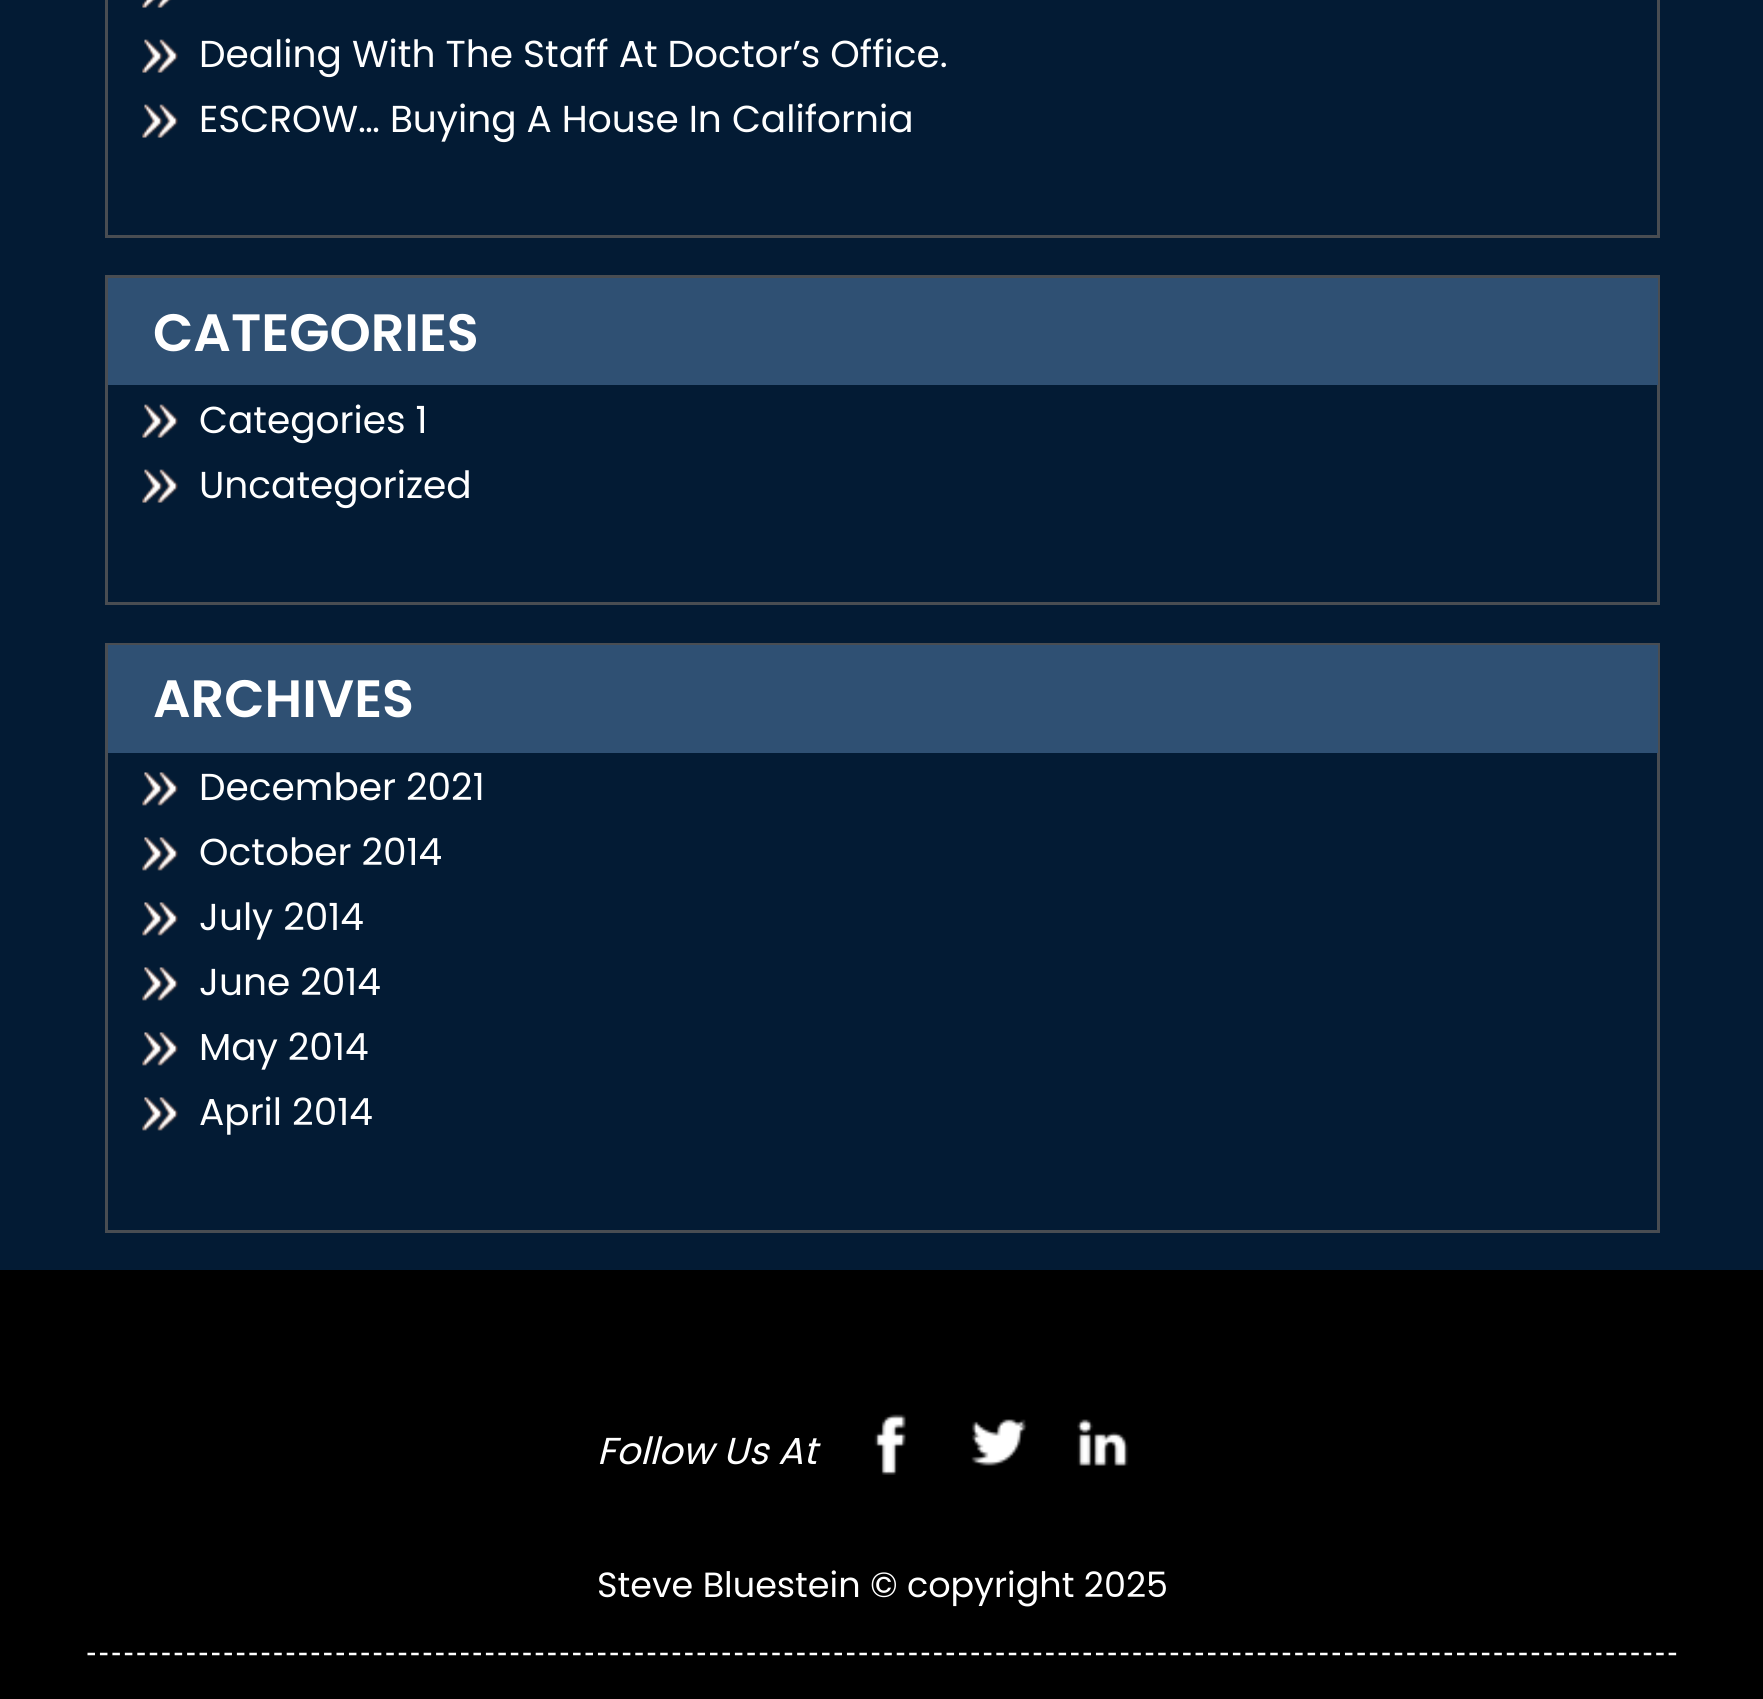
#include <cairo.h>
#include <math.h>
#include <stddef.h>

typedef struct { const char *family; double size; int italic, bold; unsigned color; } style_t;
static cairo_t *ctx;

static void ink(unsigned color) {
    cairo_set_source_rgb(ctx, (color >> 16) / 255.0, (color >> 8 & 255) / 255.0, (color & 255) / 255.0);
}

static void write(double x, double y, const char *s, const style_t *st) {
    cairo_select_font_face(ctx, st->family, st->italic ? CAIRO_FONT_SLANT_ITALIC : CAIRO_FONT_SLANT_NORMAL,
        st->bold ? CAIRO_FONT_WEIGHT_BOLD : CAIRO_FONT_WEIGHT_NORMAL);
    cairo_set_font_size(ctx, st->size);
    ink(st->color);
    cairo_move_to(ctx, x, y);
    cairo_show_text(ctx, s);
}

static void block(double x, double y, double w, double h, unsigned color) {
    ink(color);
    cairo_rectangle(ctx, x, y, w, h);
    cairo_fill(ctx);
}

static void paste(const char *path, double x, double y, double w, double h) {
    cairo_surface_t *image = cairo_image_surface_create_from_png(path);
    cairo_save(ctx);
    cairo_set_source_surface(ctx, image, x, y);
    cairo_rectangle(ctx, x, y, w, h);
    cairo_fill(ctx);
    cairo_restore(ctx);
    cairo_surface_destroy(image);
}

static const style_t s1 = {"Poppins", 37.5, 0, 0, 0xffffff};
static const style_t s2 = {"Poppins SemiBold", 52.5, 0, 0, 0xffffff};
static const style_t s3 = {"Poppins", 37.5, 1, 0, 0xffffff};
static const style_t s4 = {"Poppins", 35, 0, 0, 0xffffff};

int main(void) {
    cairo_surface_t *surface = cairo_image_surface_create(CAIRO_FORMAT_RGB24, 1763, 1699);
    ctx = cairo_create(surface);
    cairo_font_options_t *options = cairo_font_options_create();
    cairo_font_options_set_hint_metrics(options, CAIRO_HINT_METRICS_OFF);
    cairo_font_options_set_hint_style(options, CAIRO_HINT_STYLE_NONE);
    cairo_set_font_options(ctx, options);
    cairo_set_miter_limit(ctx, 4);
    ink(0x031b34);
    cairo_paint(ctx);
    cairo_rectangle(ctx, 106.5, -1.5, 1552, 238);
    ink(0x494d52);
    cairo_set_line_width(ctx, 3);
    cairo_stroke(ctx);
    paste("pic1.png", 142, 0, 30, 8);
    paste("pic2.png", 142, 39, 36, 34);
    write(199, 67, "Dealing With The Staff At Doctor’s Office.", &s1);
    paste("pic2.png", 142, 104, 36, 34);
    write(199, 132, "ESCROW… Buying A House In California", &s1);
    cairo_rectangle(ctx, 106.5, 276.5, 1552, 327);
    ink(0x494d52);
    cairo_stroke(ctx);
    block(108, 278, 1550, 107, 0x2f5073);
    write(153, 351, "CATEGORIES", &s2);
    paste("pic2.png", 142, 404, 36, 34);
    write(199, 433, "Categories 1", &s1);
    paste("pic2.png", 142, 469, 36, 34);
    write(199, 498, "Uncategorized", &s1);
    cairo_rectangle(ctx, 106.5, 644.5, 1552, 587);
    ink(0x494d52);
    cairo_stroke(ctx);
    block(108, 645, 1550, 108, 0x2f5073);
    write(153, 717, "ARCHIVES", &s2);
    paste("pic3.png", 142, 772, 36, 34);
    write(199, 800, "December 2021", &s1);
    paste("pic3.png", 142, 837, 36, 34);
    write(199, 865, "October 2014", &s1);
    paste("pic3.png", 142, 902, 36, 34);
    write(199, 930, "July 2014", &s1);
    paste("pic3.png", 142, 967, 36, 34);
    write(199, 995, "June 2014", &s1);
    paste("pic3.png", 142, 1032, 36, 34);
    write(199, 1060, "May 2014", &s1);
    paste("pic3.png", 142, 1097, 36, 34);
    write(199, 1125, "April 2014", &s1);
    block(0, 1270, 1763, 429, 0x000000);
    write(597, 1464, "Follow Us At", &s3);
    paste("pic4.png", 874, 1414, 32, 61);
    paste("pic5.png", 971, 1419, 57, 47);
    paste("pic6.png", 1077, 1419, 52, 47);
    write(597, 1597, "Steve Bluestein © copyright 2025", &s4);
    cairo_new_path(ctx);
    cairo_move_to(ctx, 87.5, 1654);
    cairo_line_to(ctx, 1677.5, 1654);
    cairo_set_line_width(ctx, 2.5);
    cairo_set_dash(ctx, (double[]){7.5, 4.95}, 2, 0);
    cairo_stroke(ctx);
    cairo_surface_write_to_png(surface, "screenshot.png");
    cairo_font_options_destroy(options);
    cairo_destroy(ctx);
    cairo_surface_destroy(surface);
    return 0;
}
